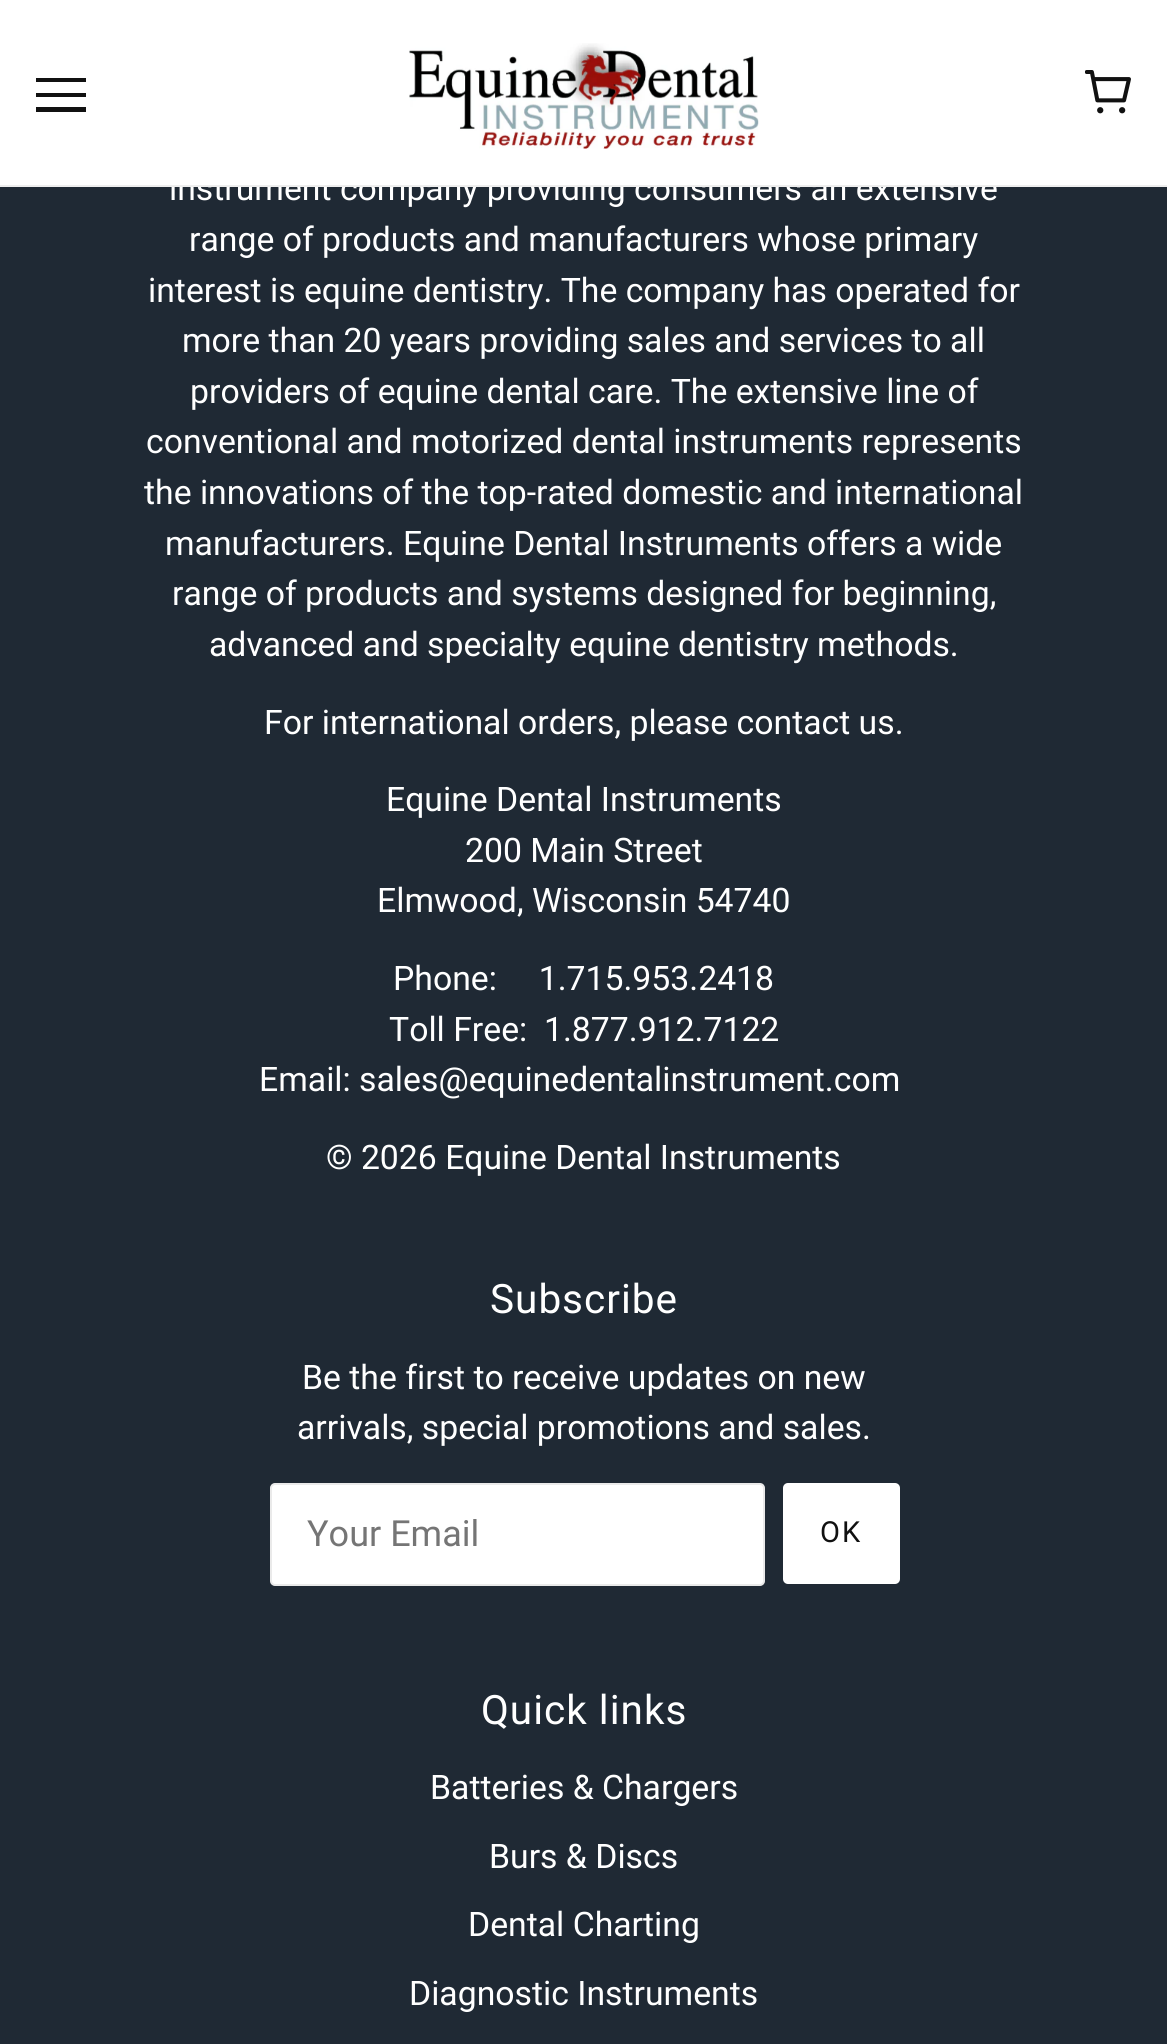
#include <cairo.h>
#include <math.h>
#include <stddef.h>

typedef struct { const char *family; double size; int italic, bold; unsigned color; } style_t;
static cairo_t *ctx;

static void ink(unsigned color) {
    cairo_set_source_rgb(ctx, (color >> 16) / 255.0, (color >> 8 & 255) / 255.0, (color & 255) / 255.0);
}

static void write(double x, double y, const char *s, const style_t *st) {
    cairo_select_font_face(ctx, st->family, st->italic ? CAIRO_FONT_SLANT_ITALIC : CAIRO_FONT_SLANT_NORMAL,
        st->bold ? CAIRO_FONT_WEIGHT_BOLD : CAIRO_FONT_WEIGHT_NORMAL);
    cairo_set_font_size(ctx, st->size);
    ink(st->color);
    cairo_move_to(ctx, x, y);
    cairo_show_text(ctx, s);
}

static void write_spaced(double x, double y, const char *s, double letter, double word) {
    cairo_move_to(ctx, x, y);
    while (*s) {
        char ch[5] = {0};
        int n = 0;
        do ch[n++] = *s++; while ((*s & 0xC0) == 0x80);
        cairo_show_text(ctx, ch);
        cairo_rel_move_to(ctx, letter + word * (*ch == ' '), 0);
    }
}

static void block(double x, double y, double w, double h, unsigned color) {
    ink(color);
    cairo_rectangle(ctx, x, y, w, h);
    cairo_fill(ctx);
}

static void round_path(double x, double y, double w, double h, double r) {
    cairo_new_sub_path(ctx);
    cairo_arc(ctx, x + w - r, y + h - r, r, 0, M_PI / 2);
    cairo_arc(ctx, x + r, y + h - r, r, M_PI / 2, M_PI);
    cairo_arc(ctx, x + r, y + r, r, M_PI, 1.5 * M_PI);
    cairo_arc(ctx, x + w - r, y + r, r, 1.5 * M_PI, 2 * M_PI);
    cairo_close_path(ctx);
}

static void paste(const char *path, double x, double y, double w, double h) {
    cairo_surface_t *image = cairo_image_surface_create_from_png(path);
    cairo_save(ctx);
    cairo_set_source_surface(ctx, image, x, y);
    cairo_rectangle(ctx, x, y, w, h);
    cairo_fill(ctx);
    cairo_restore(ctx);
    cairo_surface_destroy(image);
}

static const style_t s1 = {"Roboto", 33.75, 0, 0, 0xffffff};
static const style_t s2 = {"Roboto", 36, 0, 0, 0x757575};

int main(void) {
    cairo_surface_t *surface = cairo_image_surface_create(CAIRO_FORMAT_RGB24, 1167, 2044);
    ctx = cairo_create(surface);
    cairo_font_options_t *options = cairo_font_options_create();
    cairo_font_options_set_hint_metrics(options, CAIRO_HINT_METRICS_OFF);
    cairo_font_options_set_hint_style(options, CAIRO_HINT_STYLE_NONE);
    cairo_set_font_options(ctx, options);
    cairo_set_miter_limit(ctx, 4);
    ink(0x1f2934);
    cairo_paint(ctx);
    block(0, 0, 1167, 185, 0xffffff);
    write(169, 200, "instrument company providing consumers an extensive", &s1);
    block(0, 185, 1167, 2, 0xeeeeee);
    ink(0x111111);
    cairo_new_path(ctx);
    cairo_move_to(ctx, 36, 82);
    cairo_line_to(ctx, 36, 78);
    cairo_line_to(ctx, 86, 78);
    cairo_line_to(ctx, 86, 82);
    cairo_close_path(ctx);
    cairo_move_to(ctx, 36, 97);
    cairo_line_to(ctx, 36, 93);
    cairo_line_to(ctx, 86, 93);
    cairo_line_to(ctx, 86, 97);
    cairo_close_path(ctx);
    cairo_move_to(ctx, 36, 112);
    cairo_line_to(ctx, 36, 107);
    cairo_line_to(ctx, 86, 107);
    cairo_line_to(ctx, 86, 112);
    cairo_close_path(ctx);
    cairo_fill(ctx);
    paste("pic1.png", 409, 43, 350, 106);
    paste("pic2.png", 1085, 70, 46, 44);
    write(189, 251, "range of products and manufacturers whose primary", &s1);
    write(148, 302, "interest is equine dentistry. The company has operated for", &s1);
    write(182, 352, "more than 20 years providing sales and services to all", &s1);
    write(190, 403, "providers of equine dental care. The extensive line of", &s1);
    write(146, 453, "conventional and motorized dental instruments represents", &s1);
    write(144, 504, "the innovations of the top-rated domestic and international", &s1);
    write(165, 555, "manufacturers. Equine Dental Instruments offers a wide", &s1);
    write(172, 605, "range of products and systems designed for beginning,", &s1);
    write(209, 656, "advanced and specialty equine dentistry methods.", &s1);
    write(264, 734, "For international orders, please contact us.", &s1);
    write(386, 811, "Equine Dental Instruments", &s1);
    write(465, 862, "200 Main Street", &s1);
    write(377, 912, "Elmwood, Wisconsin 54740", &s1);
    write(393, 990, "Phone:     1.715.953.2418", &s1);
    write(389, 1041, "Toll Free:  1.877.912.7122", &s1);
    write(259, 1091, "Email: sales@equinedentalinstrument.com", &s1);
    write(326, 1169, "© 2026 Equine Dental Instruments", &s1);
    cairo_set_font_size(ctx, 40.5);
    write_spaced(490, 1313, "Subscribe", 1, 0);
    write(302, 1389, "Be the first to receive updates on new", &s1);
    write(297, 1439, "arrivals, special promotions and sales.", &s1);
    round_path(271, 1484, 493, 101, 4);
    cairo_fill_preserve(ctx);
    ink(0xeaeaea);
    cairo_stroke(ctx);
    write(307, 1546, "Your Email", &s2);
    ink(0xffffff);
    round_path(783, 1483, 117, 101, 5);
    cairo_fill(ctx);
    cairo_set_font_size(ctx, 29);
    ink(0x111111);
    write_spaced(820, 1542, "OK", 2, 0);
    cairo_set_font_size(ctx, 40.5);
    ink(0xffffff);
    write_spaced(481, 1724, "Quick links", 1, 0);
    write(430, 1799, "Batteries & Chargers", &s1);
    write(489, 1868, "Burs & Discs", &s1);
    write(468, 1936, "Dental Charting", &s1);
    write(409, 2005, "Diagnostic Instruments", &s1);
    cairo_surface_write_to_png(surface, "screenshot.png");
    cairo_font_options_destroy(options);
    cairo_destroy(ctx);
    cairo_surface_destroy(surface);
    return 0;
}
